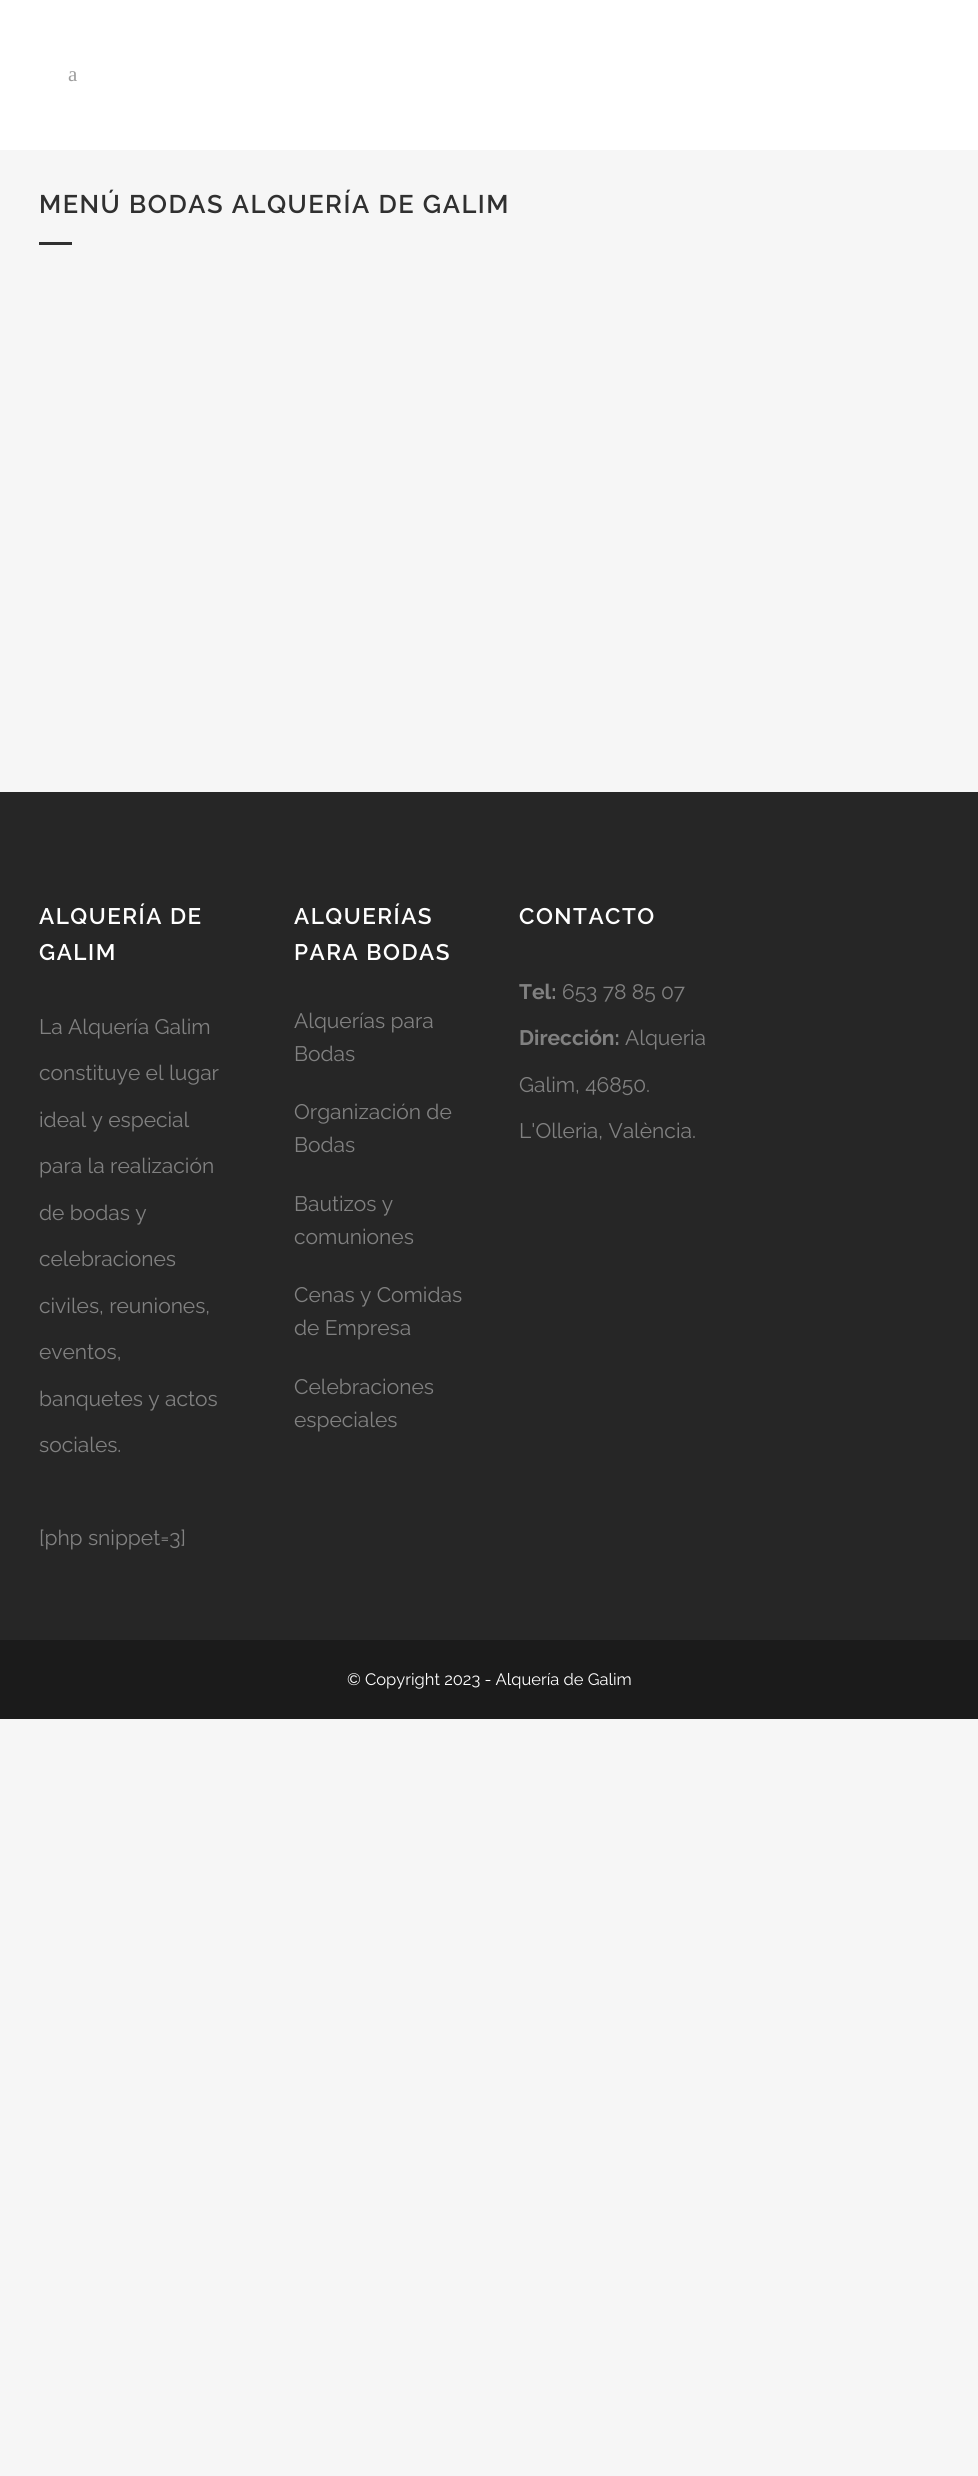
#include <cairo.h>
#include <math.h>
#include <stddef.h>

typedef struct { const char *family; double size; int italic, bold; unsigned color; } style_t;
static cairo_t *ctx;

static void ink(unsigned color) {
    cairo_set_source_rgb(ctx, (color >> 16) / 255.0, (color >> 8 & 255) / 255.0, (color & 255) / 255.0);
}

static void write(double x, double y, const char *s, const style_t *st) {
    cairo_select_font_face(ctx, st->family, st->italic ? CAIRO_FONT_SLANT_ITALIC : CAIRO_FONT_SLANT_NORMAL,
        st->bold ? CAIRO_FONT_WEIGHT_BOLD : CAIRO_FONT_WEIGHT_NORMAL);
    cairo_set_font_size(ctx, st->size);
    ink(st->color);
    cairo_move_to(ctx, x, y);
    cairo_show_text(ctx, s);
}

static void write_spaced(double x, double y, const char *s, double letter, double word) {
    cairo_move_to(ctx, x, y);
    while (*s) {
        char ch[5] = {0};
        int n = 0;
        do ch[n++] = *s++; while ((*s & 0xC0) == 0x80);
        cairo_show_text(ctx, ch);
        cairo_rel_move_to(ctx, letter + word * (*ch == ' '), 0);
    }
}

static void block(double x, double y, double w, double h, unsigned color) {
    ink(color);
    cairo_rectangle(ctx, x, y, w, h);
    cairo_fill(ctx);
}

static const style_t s1 = {"Liberation Serif", 21, 0, 0, 0x9d9d9d};
static const style_t s2 = {"Raleway", 21, 0, 0, 0x818181};
static const style_t s3 = {"Raleway", 21, 0, 1, 0x818181};
static const style_t s4 = {"Raleway", 16.5, 0, 0, 0xffffff};

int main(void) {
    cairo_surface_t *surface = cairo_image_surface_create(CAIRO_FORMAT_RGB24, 978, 2476);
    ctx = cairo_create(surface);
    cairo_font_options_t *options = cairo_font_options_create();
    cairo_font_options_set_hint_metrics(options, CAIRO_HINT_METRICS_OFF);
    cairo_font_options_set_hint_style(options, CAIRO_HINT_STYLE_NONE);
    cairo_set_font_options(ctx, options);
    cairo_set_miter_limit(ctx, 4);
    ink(0xf6f6f6);
    cairo_paint(ctx);
    block(0, 0, 978, 150, 0xffffff);
    write(68, 81, "a", &s1);
    cairo_select_font_face(ctx, "Raleway SemiBold", CAIRO_FONT_SLANT_NORMAL, CAIRO_FONT_WEIGHT_NORMAL);
    cairo_set_font_size(ctx, 25.5);
    ink(0x303030);
    write_spaced(39, 213, "MENÚ BODAS ALQUERÍA DE GALIM", 1.5, 0);
    block(39, 242, 33, 3, 0x303030);
    block(0, 792, 978, 848, 0x262626);
    cairo_set_font_size(ctx, 22.5);
    ink(0xffffff);
    write_spaced(39, 924, "ALQUERÍA DE", 1.5, 0);
    write_spaced(39, 960, "GALIM", 1.5, 0);
    write(39, 1034, "La Alquería Galim", &s2);
    write(39, 1080, "constituye el lugar", &s2);
    write(39, 1127, "ideal y especial", &s2);
    write(39, 1173, "para la realización", &s2);
    write(39, 1220, "de bodas y", &s2);
    write(39, 1266, "celebraciones", &s2);
    write(39, 1313, "civiles, reuniones,", &s2);
    write(39, 1359, "eventos,", &s2);
    write(39, 1406, "banquetes y actos", &s2);
    write(39, 1452, "sociales.", &s2);
    write(39, 1545, "[php snippet=3]", &s2);
    cairo_select_font_face(ctx, "Raleway SemiBold", CAIRO_FONT_SLANT_NORMAL, CAIRO_FONT_WEIGHT_NORMAL);
    cairo_set_font_size(ctx, 22.5);
    ink(0xffffff);
    write_spaced(294, 924, "ALQUERÍAS", 1.5, 0);
    write_spaced(294, 960, "PARA BODAS", 1.5, 0);
    write(294, 1028, "Alquerías para", &s2);
    write(294, 1061, "Bodas", &s2);
    write(294, 1119, "Organización de", &s2);
    write(294, 1152, "Bodas", &s2);
    write(294, 1211, "Bautizos y", &s2);
    write(294, 1244, "comuniones", &s2);
    write(294, 1302, "Cenas y Comidas", &s2);
    write(294, 1335, "de Empresa", &s2);
    write(294, 1394, "Celebraciones", &s2);
    write(294, 1427, "especiales", &s2);
    cairo_select_font_face(ctx, "Raleway SemiBold", CAIRO_FONT_SLANT_NORMAL, CAIRO_FONT_WEIGHT_NORMAL);
    cairo_set_font_size(ctx, 22.5);
    ink(0xffffff);
    write_spaced(519, 924, "CONTACTO", 1.5, 0);
    write(519, 999, "Tel:", &s3);
    write(562, 999, "653 78 85 07", &s2);
    write(519, 1045, "Dirección:", &s3);
    write(625, 1045, "Alqueria", &s2);
    write(519, 1092, "Galim, 46850.", &s2);
    write(519, 1138, "L'Olleria, València.", &s2);
    block(0, 1640, 978, 79, 0x1b1b1b);
    write(347, 1685, "© Copyright 2023 - Alquería de Galim", &s4);
    cairo_surface_write_to_png(surface, "screenshot.png");
    cairo_font_options_destroy(options);
    cairo_destroy(ctx);
    cairo_surface_destroy(surface);
    return 0;
}
